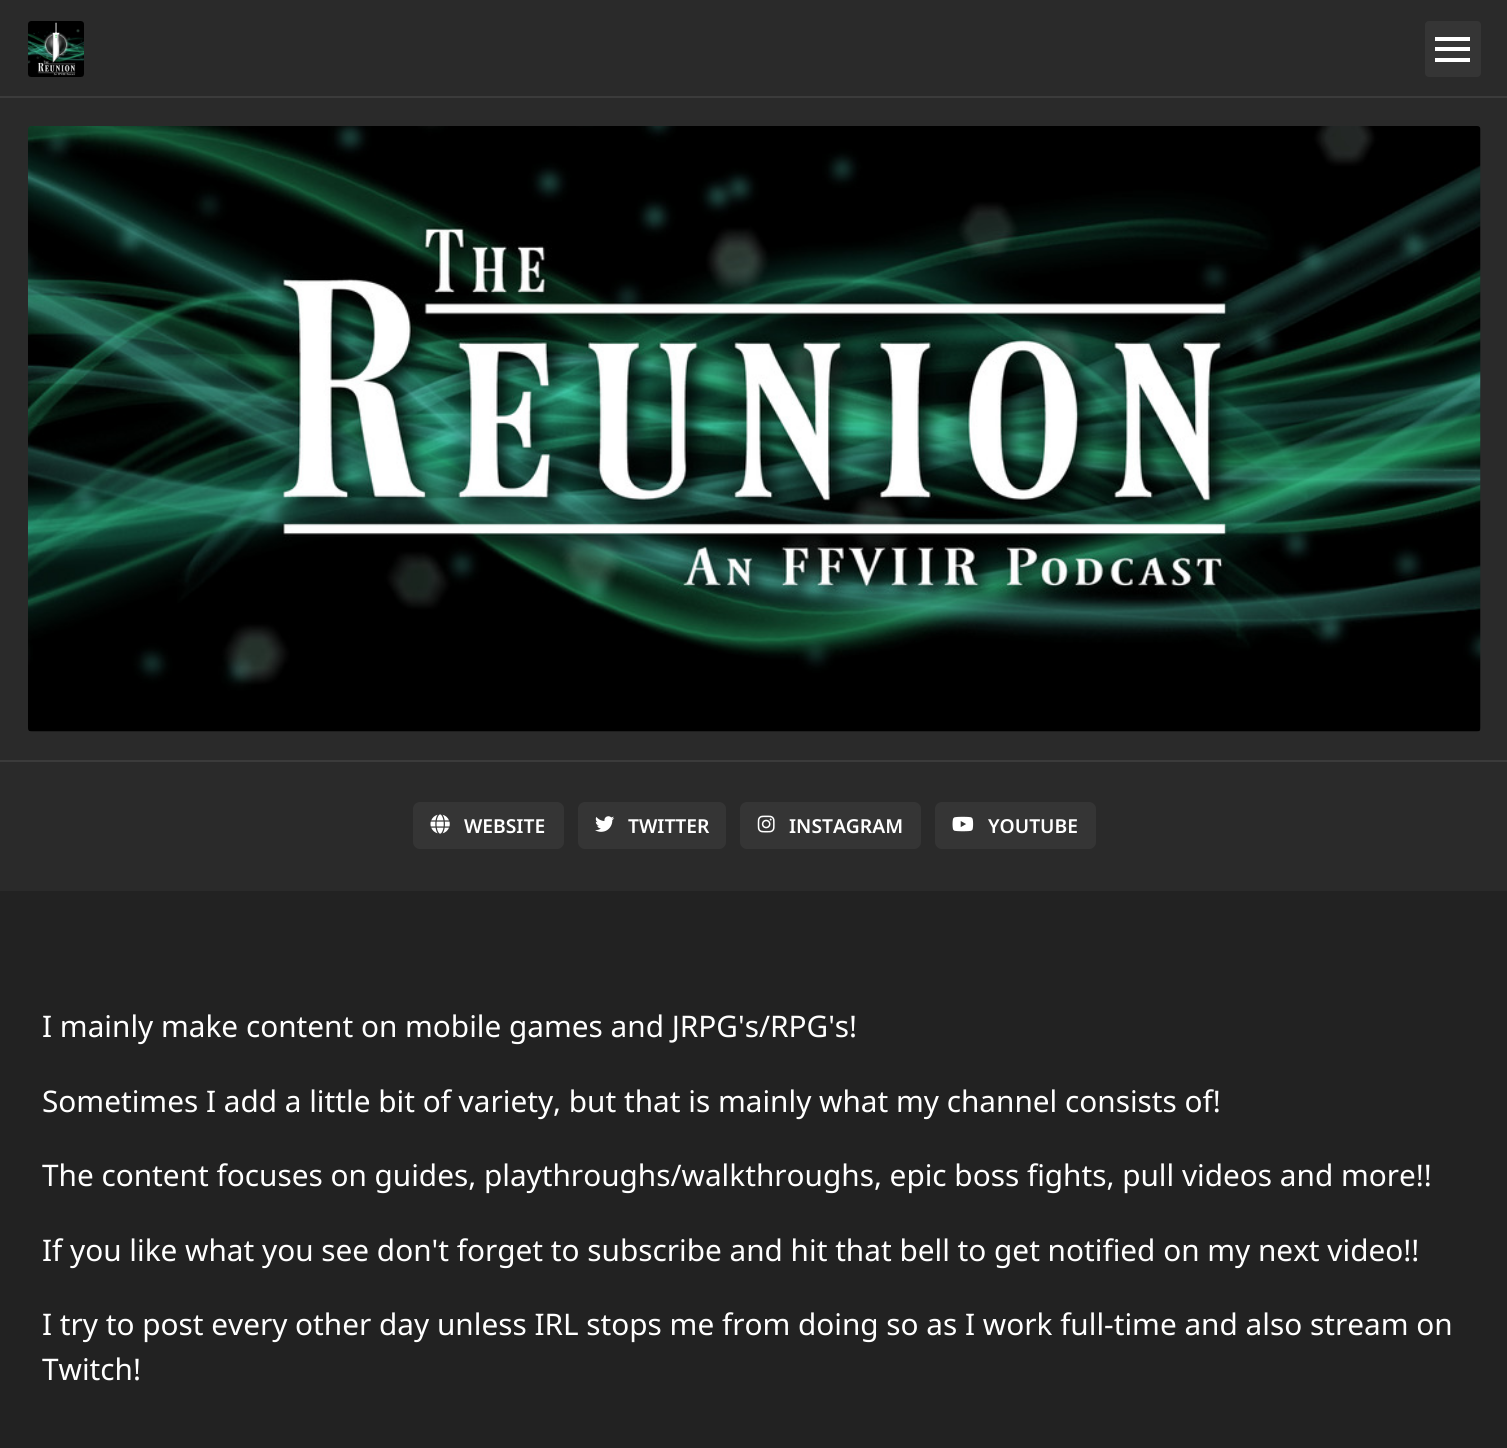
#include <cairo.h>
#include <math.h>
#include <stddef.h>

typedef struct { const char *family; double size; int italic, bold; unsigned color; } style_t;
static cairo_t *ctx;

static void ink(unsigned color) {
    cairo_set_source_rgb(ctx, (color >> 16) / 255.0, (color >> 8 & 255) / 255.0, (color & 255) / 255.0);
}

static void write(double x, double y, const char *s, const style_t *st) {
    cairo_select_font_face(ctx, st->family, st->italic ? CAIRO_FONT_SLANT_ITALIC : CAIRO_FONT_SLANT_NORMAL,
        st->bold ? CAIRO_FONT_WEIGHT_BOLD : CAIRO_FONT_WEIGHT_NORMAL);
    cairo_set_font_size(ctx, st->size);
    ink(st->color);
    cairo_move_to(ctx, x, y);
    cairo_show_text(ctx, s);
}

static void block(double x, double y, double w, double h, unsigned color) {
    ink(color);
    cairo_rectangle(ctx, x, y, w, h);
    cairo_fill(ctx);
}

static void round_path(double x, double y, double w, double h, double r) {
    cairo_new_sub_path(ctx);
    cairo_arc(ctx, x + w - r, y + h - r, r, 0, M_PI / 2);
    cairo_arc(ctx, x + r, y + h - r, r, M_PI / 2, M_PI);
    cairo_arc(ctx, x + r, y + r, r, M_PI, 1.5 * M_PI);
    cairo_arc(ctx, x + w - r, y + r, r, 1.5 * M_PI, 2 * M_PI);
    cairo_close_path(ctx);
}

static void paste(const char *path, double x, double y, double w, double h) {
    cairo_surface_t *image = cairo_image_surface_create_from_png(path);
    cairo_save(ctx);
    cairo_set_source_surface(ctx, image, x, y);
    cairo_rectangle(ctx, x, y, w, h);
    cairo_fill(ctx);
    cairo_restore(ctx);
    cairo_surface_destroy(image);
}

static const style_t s1 = {"Noto Sans SemiBold", 19.25, 0, 0, 0xffffff};
static const style_t s2 = {"Noto Sans", 29.75, 0, 0, 0xffffff};

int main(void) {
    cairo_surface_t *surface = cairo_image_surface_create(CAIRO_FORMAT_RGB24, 1507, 1448);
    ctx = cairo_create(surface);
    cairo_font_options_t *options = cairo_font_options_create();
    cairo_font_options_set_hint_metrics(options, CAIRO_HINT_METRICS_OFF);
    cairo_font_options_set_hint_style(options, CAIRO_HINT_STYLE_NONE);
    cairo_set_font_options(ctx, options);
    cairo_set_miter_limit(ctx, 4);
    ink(0x222222);
    cairo_paint(ctx);
    block(0, 0, 1507, 96, 0x2a2a2a);
    block(0, 96, 1507, 2, 0x3b3b3b);
    paste("pic1.png", 28, 21, 56, 56);
    ink(0x353535);
    round_path(1425, 21, 56, 56, 4);
    cairo_fill(ctx);
    block(1435, 37, 35, 4, 0xffffff);
    block(1435, 47, 35, 4, 0xffffff);
    block(1435, 58, 35, 4, 0xffffff);
    block(0, 98, 1507, 662, 0x2a2a2a);
    paste("pic2.png", 28, 126, 1453, 606);
    block(0, 762, 1507, 129, 0x2a2a2a);
    block(0, 760, 1507, 2, 0x3b3b3b);
    ink(0x353535);
    round_path(413, 802, 151, 47, 7);
    cairo_fill(ctx);
    paste("pic3.png", 430, 814, 20, 20);
    write(464, 833, "WEBSITE", &s1);
    ink(0x353535);
    round_path(578, 802, 148, 47, 7);
    cairo_fill(ctx);
    paste("pic4.png", 595, 816, 20, 16);
    write(628, 833, "TWITTER", &s1);
    ink(0x353535);
    round_path(740, 802, 181, 47, 7);
    cairo_fill(ctx);
    paste("pic5.png", 757, 815, 18, 18);
    write(789, 833, "INSTAGRAM", &s1);
    ink(0x353535);
    round_path(935, 802, 161, 47, 7);
    cairo_fill(ctx);
    paste("pic6.png", 952, 816, 22, 16);
    write(988, 833, "YOUTUBE", &s1);
    write(42, 1037, "I mainly make content on mobile games and JRPG's/RPG's!", &s2);
    write(42, 1112, "Sometimes I add a little bit of variety, but that is mainly what my channel consists of!", &s2);
    write(42, 1186, "The content focuses on guides, playthroughs/walkthroughs, epic boss fights, pull videos and more!!", &s2);
    write(42, 1261, "If you like what you see don't forget to subscribe and hit that bell to get notified on my next video!!", &s2);
    write(42, 1335, "I try to post every other day unless IRL stops me from doing so as I work full-time and also stream on", &s2);
    write(42, 1380, "Twitch!", &s2);
    cairo_surface_write_to_png(surface, "screenshot.png");
    cairo_font_options_destroy(options);
    cairo_destroy(ctx);
    cairo_surface_destroy(surface);
    return 0;
}
